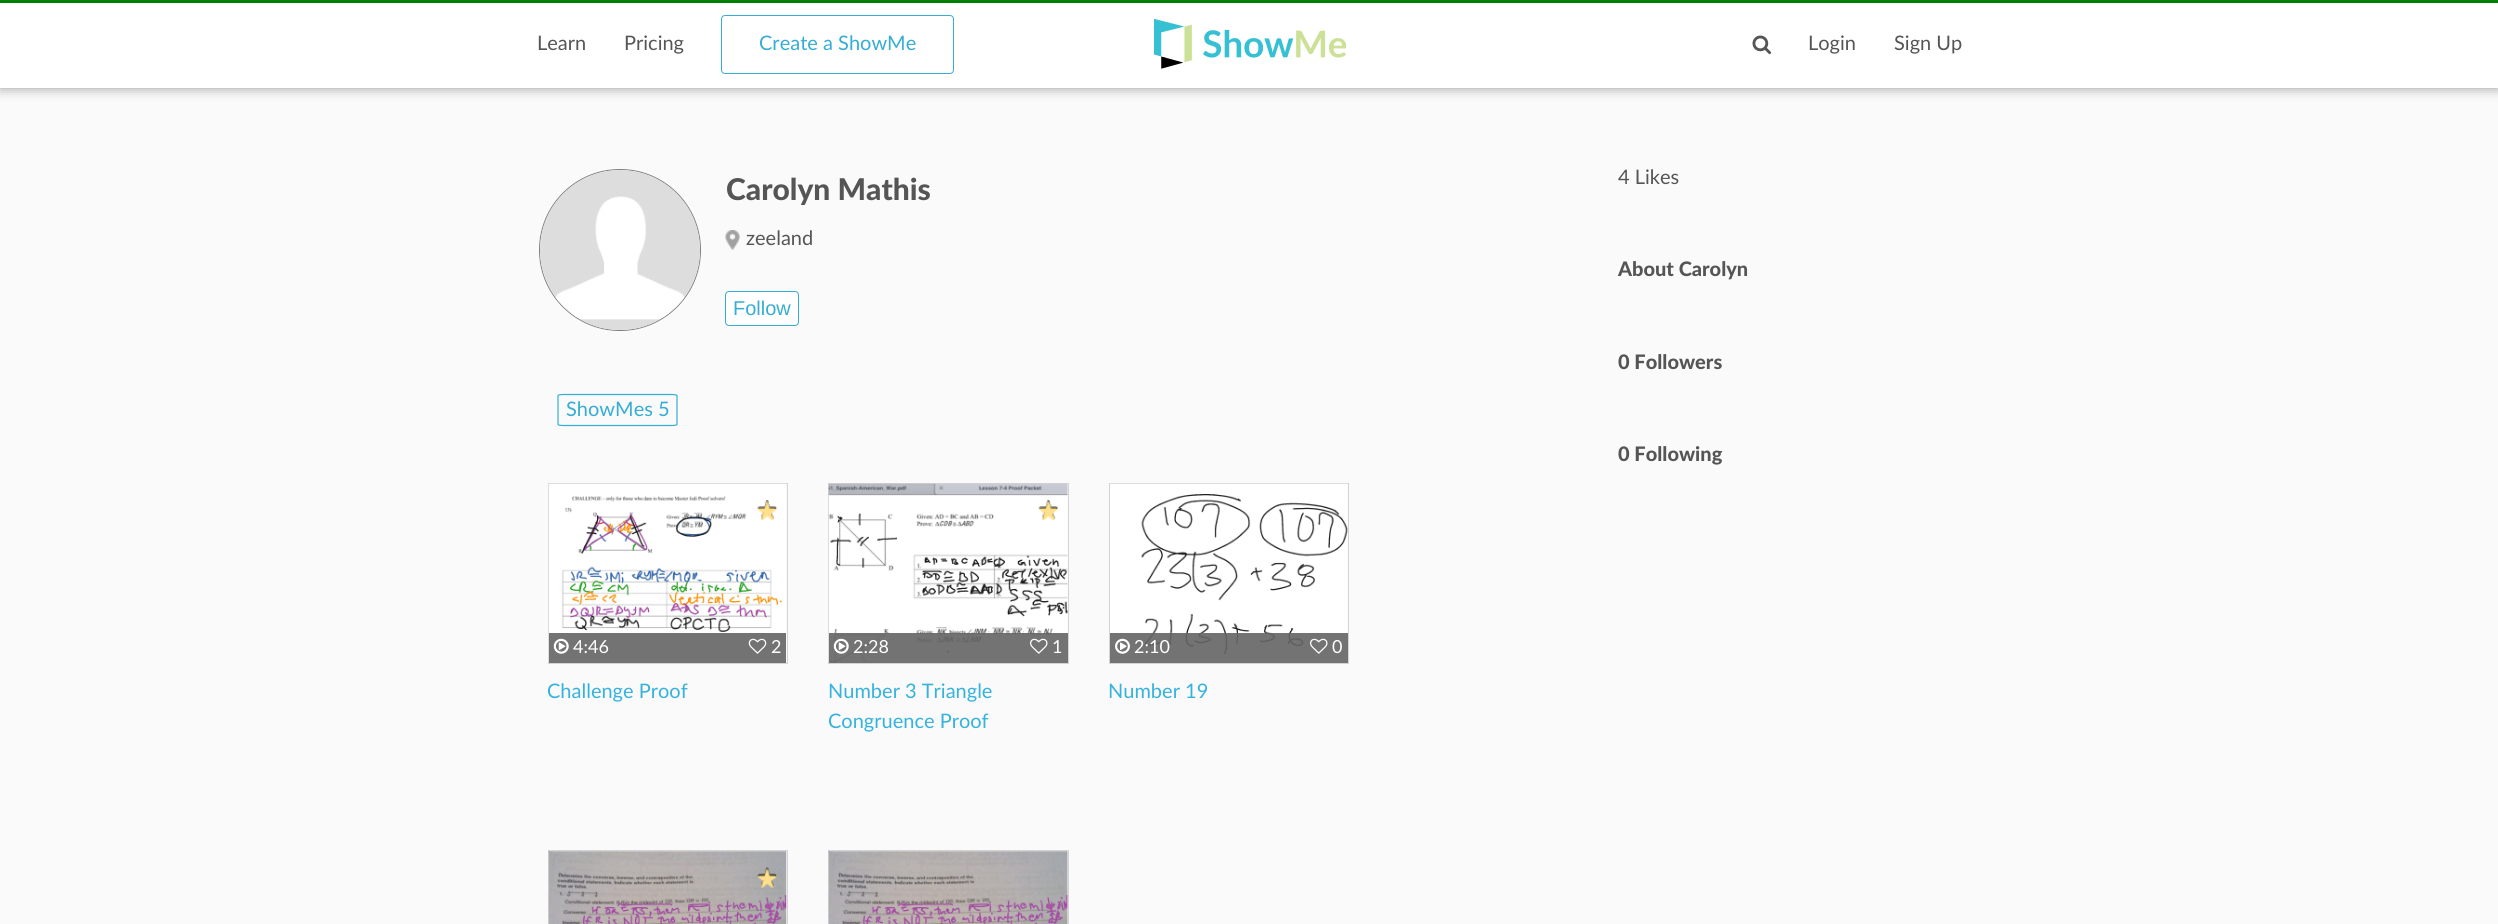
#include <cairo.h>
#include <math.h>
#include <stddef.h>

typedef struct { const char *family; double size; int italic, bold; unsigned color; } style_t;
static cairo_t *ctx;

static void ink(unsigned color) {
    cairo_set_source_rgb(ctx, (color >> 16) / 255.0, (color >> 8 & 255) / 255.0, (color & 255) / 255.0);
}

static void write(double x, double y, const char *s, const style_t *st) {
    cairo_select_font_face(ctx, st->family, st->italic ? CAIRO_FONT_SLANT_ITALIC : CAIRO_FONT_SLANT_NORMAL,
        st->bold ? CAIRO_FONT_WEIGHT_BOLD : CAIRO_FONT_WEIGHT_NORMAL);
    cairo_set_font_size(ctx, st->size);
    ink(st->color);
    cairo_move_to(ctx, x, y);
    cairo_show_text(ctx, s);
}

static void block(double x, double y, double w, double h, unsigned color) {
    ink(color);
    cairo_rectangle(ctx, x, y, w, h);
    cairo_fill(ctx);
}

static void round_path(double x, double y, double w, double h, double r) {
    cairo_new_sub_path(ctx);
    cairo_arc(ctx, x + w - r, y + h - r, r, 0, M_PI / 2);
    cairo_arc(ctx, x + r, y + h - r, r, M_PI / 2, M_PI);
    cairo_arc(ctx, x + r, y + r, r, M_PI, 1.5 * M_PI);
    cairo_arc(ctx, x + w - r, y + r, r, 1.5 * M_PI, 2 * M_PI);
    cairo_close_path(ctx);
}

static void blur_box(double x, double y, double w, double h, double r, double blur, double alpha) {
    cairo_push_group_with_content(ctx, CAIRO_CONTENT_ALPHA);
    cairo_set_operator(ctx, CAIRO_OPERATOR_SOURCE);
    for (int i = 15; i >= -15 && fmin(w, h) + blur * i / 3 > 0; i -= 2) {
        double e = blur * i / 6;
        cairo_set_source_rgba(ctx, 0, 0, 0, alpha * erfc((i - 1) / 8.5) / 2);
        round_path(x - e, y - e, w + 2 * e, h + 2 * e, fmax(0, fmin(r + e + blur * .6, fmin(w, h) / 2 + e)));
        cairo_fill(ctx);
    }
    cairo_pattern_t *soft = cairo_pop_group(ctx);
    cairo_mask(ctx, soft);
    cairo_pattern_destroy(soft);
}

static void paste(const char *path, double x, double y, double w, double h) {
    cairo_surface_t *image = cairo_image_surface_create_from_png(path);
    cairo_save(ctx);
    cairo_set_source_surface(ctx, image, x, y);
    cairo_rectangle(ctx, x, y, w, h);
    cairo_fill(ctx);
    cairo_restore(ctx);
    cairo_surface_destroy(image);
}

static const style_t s1 = {"Lato", 20, 0, 0, 0x555555};
static const style_t s2 = {"Lato", 20, 0, 0, 0x35add4};
static const style_t s3 = {"Lato Black", 30, 0, 0, 0x555555};
static const style_t s4 = {"Liberation Sans", 20, 0, 0, 0x35add4};
static const style_t s5 = {"Lato", 18, 0, 0, 0xffffff};
static const style_t s6 = {"Lato", 20, 0, 0, 0x35b2de};
static const style_t s7 = {"Lato Black", 20, 0, 0, 0x555555};

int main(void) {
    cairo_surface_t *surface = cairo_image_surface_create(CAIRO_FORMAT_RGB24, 2498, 924);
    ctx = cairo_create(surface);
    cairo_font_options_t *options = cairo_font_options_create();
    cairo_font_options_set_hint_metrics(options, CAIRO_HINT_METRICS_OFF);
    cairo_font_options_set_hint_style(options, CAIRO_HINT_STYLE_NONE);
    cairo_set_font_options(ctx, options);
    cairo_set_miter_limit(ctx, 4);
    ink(0xfafafa);
    cairo_paint(ctx);
    ink(0x000000);
    blur_box(0, 0, 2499, 88, 0, 6, 0.4);
    block(0, 0, 2498, 3, 0x008000);
    block(0, 3, 2498, 85, 0xffffff);
    write(537, 50, "Learn", &s1);
    write(624, 50, "Pricing", &s1);
    round_path(721.5, 15.5, 232, 58, 3.5);
    ink(0x35add4);
    cairo_set_line_width(ctx, 1);
    cairo_stroke(ctx);
    write(759, 50, "Create a ShowMe", &s2);
    paste("pic1.png", 1154, 19, 192, 50);
    paste("pic2.png", 1752, 35, 20, 20);
    write(1808, 50, "Login", &s1);
    write(1894, 50, "Sign Up", &s1);
    cairo_new_path(ctx);
    cairo_arc(ctx, 620, 250, 80.5, 0, 2 * M_PI);
    ink(0x808080);
    cairo_stroke(ctx);
    paste("pic3.png", 540, 170, 160, 160);
    write(726, 200, "Carolyn Mathis", &s3);
    paste("pic4.png", 725, 230, 15, 20);
    write(746, 245, "zeeland", &s1);
    ink(0xffffff);
    round_path(725.5, 291.5, 73, 34, 3.5);
    cairo_fill_preserve(ctx);
    ink(0x35add4);
    cairo_stroke(ctx);
    write(733, 315, "Follow", &s4);
    cairo_new_path(ctx);
    cairo_move_to(ctx, 563.5, 394.5);
    cairo_line_to(ctx, 671.5, 394.5);
    cairo_curve_to(ctx, 674.5, 394.5, 677, 395, 677, 395.5);
    cairo_line_to(ctx, 677, 424.5);
    cairo_curve_to(ctx, 677, 425, 674.5, 425.5, 671.5, 425.5);
    cairo_line_to(ctx, 563.5, 425.5);
    cairo_curve_to(ctx, 560.5, 425.5, 558, 425, 558, 424.5);
    cairo_line_to(ctx, 558, 395.5);
    cairo_curve_to(ctx, 558, 395, 560.5, 394.5, 563.5, 394.5);
    cairo_close_path(ctx);
    cairo_set_line_width(ctx, 1.2);
    cairo_stroke(ctx);
    write(566, 416, "ShowMes 5", &s2);
    cairo_rectangle(ctx, 548.5, 483.5, 239, 180);
    ink(0xd3d3d3);
    cairo_set_line_width(ctx, 1);
    cairo_stroke(ctx);
    paste("pic5.png", 548, 483, 238, 180);
    paste("pic6.png", 757, 500, 20, 20);
    block(549, 633, 237, 30, 0x737373);
    paste("pic7.png", 553, 638, 16, 16);
    write(573, 653, "4:46", &s5);
    paste("pic8.png", 748, 638, 19, 16);
    write(771, 653, "2", &s5);
    cairo_save(ctx);
    cairo_rectangle(ctx, 548, 676, 240, 63);
    cairo_clip(ctx);
    write(547, 698, "Challenge Proof", &s6);
    cairo_restore(ctx);
    cairo_rectangle(ctx, 828.5, 483.5, 240, 180);
    ink(0xd3d3d3);
    cairo_stroke(ctx);
    paste("pic9.png", 828, 483, 240, 180);
    paste("pic10.png", 1038, 500, 20, 20);
    cairo_set_source_rgba(ctx, 0.392, 0.392, 0.392, 0.9);
    cairo_rectangle(ctx, 829, 633, 239, 30);
    cairo_fill(ctx);
    paste("pic11.png", 833, 638, 16, 16);
    write(853, 653, "2:28", &s5);
    paste("pic12.png", 1030, 638, 18, 16);
    write(1052, 653, "1", &s5);
    write(828, 698, "Number 3 Triangle", &s6);
    write(828, 728, "Congruence Proof", &s6);
    cairo_rectangle(ctx, 1109.5, 483.5, 239, 180);
    ink(0xd3d3d3);
    cairo_stroke(ctx);
    paste("pic13.png", 1110, 483, 238, 179);
    cairo_set_source_rgba(ctx, 0.392, 0.392, 0.392, 0.9);
    cairo_rectangle(ctx, 1110, 633, 238, 30);
    cairo_fill(ctx);
    paste("pic14.png", 1115, 638, 15, 16);
    write(1134, 653, "2:10", &s5);
    paste("pic12.png", 1310, 638, 18, 16);
    write(1332, 653, "0", &s5);
    write(1108, 698, "Number 19", &s6);
    cairo_rectangle(ctx, 548.5, 850.5, 239, 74);
    ink(0xd3d3d3);
    cairo_stroke(ctx);
    paste("pic15.png", 548, 851, 239, 73);
    paste("pic16.png", 757, 867, 20, 21);
    cairo_rectangle(ctx, 828.5, 850.5, 240, 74);
    cairo_stroke(ctx);
    paste("pic17.png", 828, 851, 240, 73);
    write(1618, 184, "4 Likes", &s1);
    write(1618, 276, "About Carolyn", &s7);
    write(1618, 369, "0 Followers", &s7);
    write(1618, 461, "0 Following", &s7);
    cairo_surface_write_to_png(surface, "screenshot.png");
    cairo_font_options_destroy(options);
    cairo_destroy(ctx);
    cairo_surface_destroy(surface);
    return 0;
}
